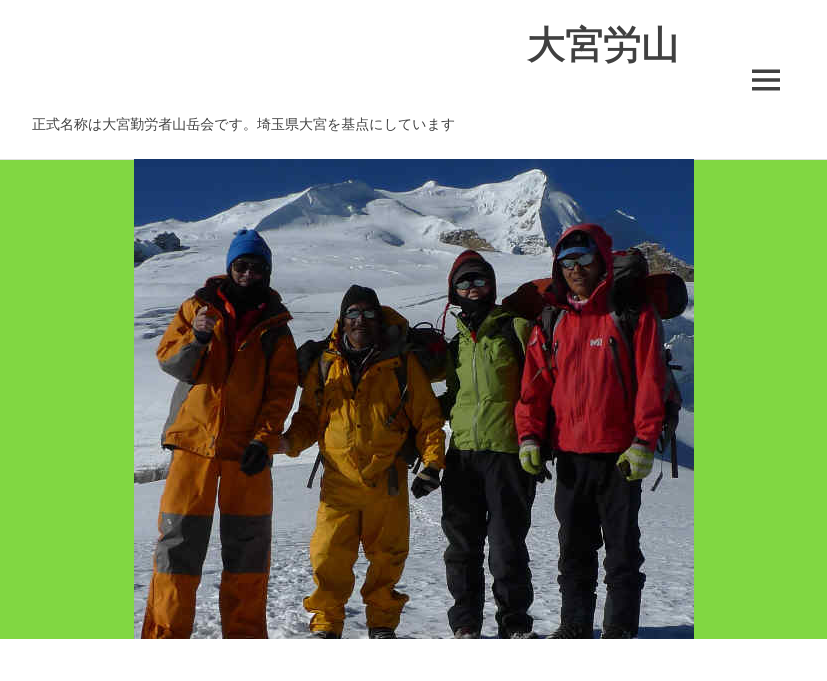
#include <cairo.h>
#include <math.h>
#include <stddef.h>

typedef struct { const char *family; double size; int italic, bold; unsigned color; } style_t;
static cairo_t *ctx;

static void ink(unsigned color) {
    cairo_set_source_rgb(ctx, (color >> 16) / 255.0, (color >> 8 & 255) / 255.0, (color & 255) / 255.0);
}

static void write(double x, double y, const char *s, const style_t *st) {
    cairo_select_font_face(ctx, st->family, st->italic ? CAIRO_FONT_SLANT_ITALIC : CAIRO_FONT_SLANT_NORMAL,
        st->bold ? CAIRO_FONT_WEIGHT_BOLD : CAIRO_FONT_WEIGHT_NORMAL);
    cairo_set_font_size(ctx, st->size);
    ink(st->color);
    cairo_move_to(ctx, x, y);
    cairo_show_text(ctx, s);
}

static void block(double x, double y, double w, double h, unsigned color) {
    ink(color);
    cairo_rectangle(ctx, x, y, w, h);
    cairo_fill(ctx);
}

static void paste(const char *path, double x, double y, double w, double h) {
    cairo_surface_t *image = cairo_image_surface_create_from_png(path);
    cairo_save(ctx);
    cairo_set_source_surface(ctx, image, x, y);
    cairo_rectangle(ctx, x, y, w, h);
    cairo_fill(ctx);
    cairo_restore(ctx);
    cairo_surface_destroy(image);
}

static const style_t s1 = {"WenQuanYi Zen Hei", 38, 0, 1, 0x404040};
static const style_t s2 = {"WenQuanYi Zen Hei Medium", 14, 0, 0, 0x404040};

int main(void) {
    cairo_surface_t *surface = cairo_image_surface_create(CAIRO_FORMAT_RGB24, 827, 681);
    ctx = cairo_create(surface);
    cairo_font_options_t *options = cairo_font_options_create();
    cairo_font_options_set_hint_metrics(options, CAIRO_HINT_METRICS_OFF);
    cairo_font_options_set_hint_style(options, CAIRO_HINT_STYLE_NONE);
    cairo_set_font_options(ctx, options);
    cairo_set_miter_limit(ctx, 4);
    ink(0x81d742);
    cairo_paint(ctx);
    block(0, 0, 827, 159, 0xffffff);
    block(0, 159, 827, 1, 0xe0e0e0);
    write(527, 58, "大宮労山", &s1);
    write(32, 129, "正式名称は大宮勤労者山岳会です。埼玉県大宮を基点にしています", &s2);
    paste("pic1.png", 752, 69, 28, 22);
    paste("pic2.png", 134, 159, 560, 480);
    block(0, 639, 827, 42, 0xffffff);
    cairo_surface_write_to_png(surface, "screenshot.png");
    cairo_font_options_destroy(options);
    cairo_destroy(ctx);
    cairo_surface_destroy(surface);
    return 0;
}
